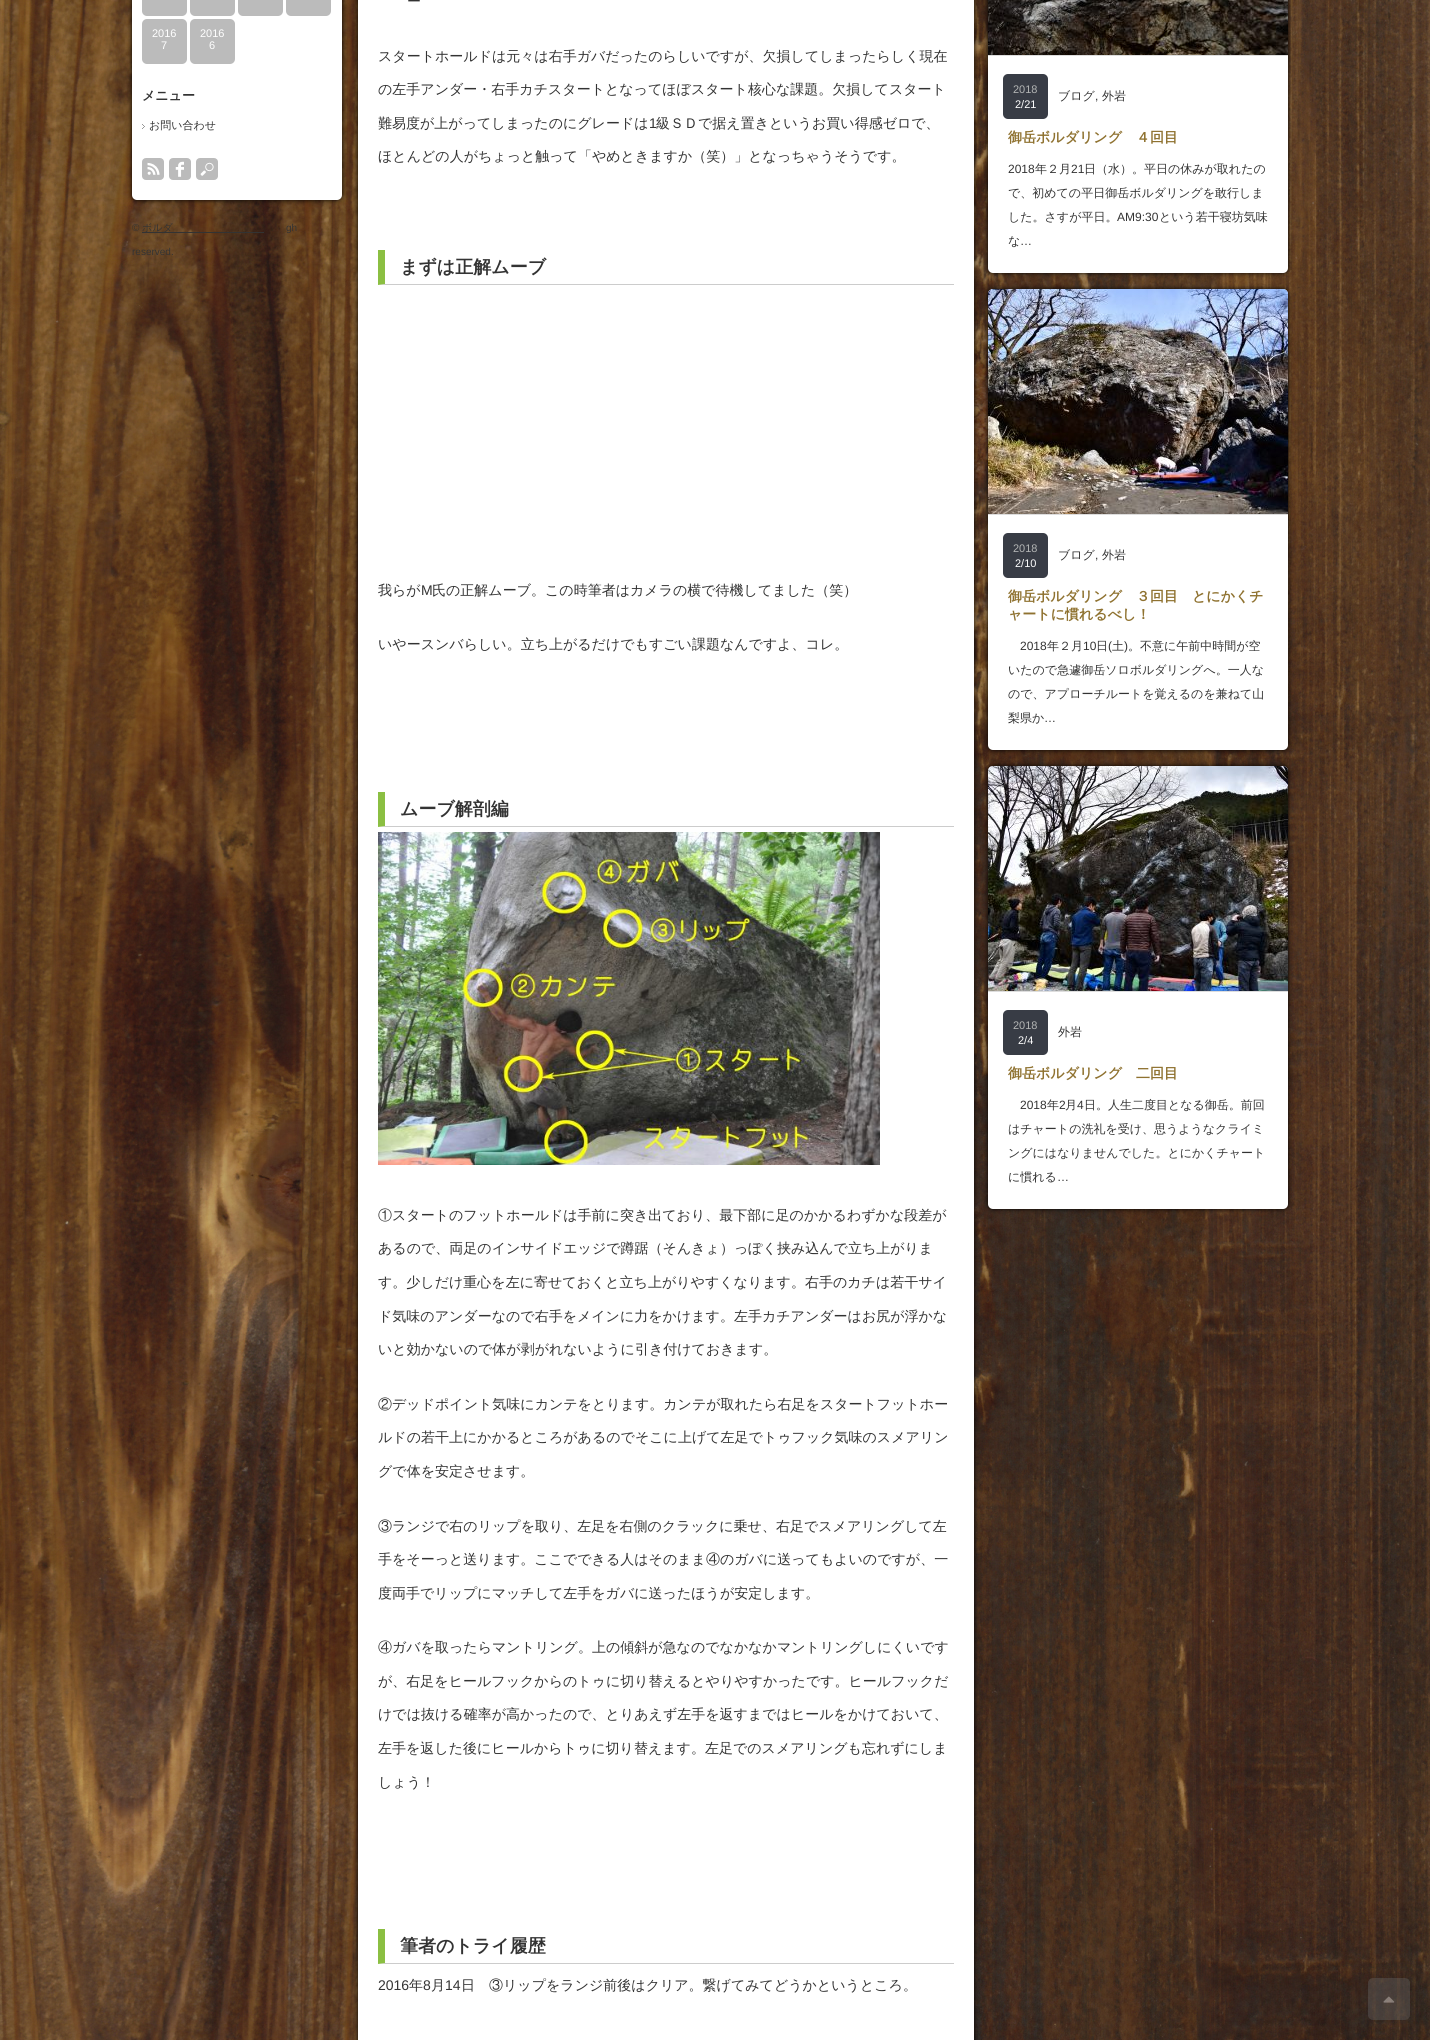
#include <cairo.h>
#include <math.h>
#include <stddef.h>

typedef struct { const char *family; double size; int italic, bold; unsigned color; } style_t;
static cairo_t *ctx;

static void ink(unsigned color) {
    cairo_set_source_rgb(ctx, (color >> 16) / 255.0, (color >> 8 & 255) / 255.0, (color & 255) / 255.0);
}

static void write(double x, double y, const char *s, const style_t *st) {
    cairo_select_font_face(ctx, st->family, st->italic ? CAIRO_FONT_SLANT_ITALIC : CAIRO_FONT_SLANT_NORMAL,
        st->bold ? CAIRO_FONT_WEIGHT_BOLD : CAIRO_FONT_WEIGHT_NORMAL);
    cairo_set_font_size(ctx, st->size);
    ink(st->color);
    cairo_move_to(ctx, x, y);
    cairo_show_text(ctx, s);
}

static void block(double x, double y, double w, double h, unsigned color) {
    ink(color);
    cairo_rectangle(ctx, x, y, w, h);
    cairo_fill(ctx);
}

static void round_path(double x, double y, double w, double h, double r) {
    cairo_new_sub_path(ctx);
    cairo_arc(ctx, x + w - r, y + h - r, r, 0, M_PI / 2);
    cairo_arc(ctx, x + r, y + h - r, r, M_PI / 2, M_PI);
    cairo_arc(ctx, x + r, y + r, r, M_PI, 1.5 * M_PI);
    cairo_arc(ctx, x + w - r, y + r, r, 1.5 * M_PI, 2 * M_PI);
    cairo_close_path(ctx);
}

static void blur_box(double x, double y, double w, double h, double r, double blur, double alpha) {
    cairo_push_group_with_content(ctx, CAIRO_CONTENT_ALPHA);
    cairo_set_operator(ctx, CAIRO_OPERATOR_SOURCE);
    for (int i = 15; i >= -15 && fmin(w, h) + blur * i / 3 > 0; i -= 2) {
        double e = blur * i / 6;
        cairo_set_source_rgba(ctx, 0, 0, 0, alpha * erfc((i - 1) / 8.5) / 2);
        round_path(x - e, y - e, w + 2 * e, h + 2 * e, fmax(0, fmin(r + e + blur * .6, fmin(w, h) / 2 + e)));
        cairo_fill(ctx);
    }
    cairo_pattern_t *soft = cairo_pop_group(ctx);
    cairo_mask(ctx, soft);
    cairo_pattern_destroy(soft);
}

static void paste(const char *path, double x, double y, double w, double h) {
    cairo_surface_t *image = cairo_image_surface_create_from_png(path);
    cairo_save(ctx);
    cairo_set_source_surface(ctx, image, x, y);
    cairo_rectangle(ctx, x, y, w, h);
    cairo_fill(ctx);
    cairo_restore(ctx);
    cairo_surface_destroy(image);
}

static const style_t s1 = {"Liberation Sans", 11, 0, 0, 0xffffff};
static const style_t s2 = {"WenQuanYi Zen Hei", 13, 0, 1, 0x333333};
static const style_t s3 = {"WenQuanYi Zen Hei Medium", 11, 0, 0, 0x333333};
static const style_t s4 = {"Liberation Sans", 10, 0, 0, 0x333333};
static const style_t s5 = {"WenQuanYi Zen Hei Medium", 10, 0, 0, 0x333333};
static const style_t s6 = {"WenQuanYi Zen Hei Medium", 14, 0, 0, 0x333333};
static const style_t s7 = {"Liberation Sans", 14, 0, 0, 0x333333};
static const style_t s8 = {"WenQuanYi Zen Hei", 18, 0, 1, 0x333333};
static const style_t s9 = {"Liberation Sans", 11, 0, 0, 0xb3b5b4};
static const style_t s10 = {"WenQuanYi Zen Hei Medium", 12, 0, 0, 0x333333};
static const style_t s11 = {"Liberation Sans", 12, 0, 0, 0x333333};
static const style_t s12 = {"WenQuanYi Zen Hei", 14, 0, 1, 0x8f7230};

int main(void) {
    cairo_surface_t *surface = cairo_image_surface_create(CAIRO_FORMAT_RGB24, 1430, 2040);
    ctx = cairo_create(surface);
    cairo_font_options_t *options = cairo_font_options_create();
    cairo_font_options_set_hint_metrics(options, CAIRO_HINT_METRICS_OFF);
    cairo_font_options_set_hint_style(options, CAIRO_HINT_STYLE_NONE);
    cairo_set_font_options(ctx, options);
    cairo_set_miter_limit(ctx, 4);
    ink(0xffffff);
    cairo_paint(ctx);
    paste("pic1.png", 0, 0, 1430, 2040);
    ink(0x000000);
    blur_box(132, -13, 210, 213, 5, 2.5, 1);
    ink(0xffffff);
    round_path(132, -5, 210, 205, 5);
    cairo_fill(ctx);
    ink(0xbbbbbb);
    round_path(142, -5, 45, 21, 5);
    cairo_fill(ctx);
    round_path(190, -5, 45, 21, 5);
    cairo_fill(ctx);
    round_path(238, -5, 45, 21, 5);
    cairo_fill(ctx);
    round_path(286, -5, 45, 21, 5);
    cairo_fill(ctx);
    round_path(142, 19, 45, 45, 5);
    cairo_fill(ctx);
    write(152, 37, "2016", &s1);
    write(161, 49, "7", &s1);
    ink(0xbbbbbb);
    round_path(190, 19, 45, 45, 5);
    cairo_fill(ctx);
    write(200, 37, "2016", &s1);
    write(209, 49, "6", &s1);
    write(142, 100, "メニュー", &s2);
    paste("pic2.png", 142, 124, 3, 5);
    write(149, 129, "お問い合わせ", &s3);
    paste("pic3.png", 142, 158, 22, 22);
    paste("pic4.png", 169, 158, 22, 22);
    paste("pic5.png", 196, 158, 22, 22);
    write(132, 231, "©", &s4);
    block(142, 232, 122, 1, 0x333333);
    write(142, 231, "ボルダ", &s5);
    write(286, 231, "gh", &s4);
    write(132, 255, "reserved.", &s4);
    ink(0x000000);
    blur_box(358, -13, 616, 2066, 5, 2.5, 1);
    block(358, 0, 616, 2040, 0xffffff);
    write(407, 6, "ー", &s6);
    write(378, 61, "スタートホールドは元々は右手ガバだったのらしいですが、欠損してしまったらしく現在", &s6);
    write(378, 94, "の左手アンダー・右手カチスタートとなってほぼスタート核心な課題。欠損してスタート", &s6);
    write(378, 128, "難易度が上がってしまったのにグレードは", &s6);
    write(649, 128, "1", &s7);
    write(656, 128, "級ＳＤで据え置きというお買い得感ゼロで、", &s6);
    write(378, 161, "ほとんどの人がちょっと触って「やめときますか（笑）」となっちゃうそうです。", &s6);
    ink(0xcccccc);
    cairo_new_path(ctx);
    cairo_move_to(ctx, 954, 285);
    cairo_line_to(ctx, 378, 285);
    cairo_line_to(ctx, 385, 284);
    cairo_line_to(ctx, 954, 284);
    cairo_close_path(ctx);
    cairo_fill(ctx);
    ink(0x8bbf42);
    cairo_new_path(ctx);
    cairo_move_to(ctx, 378, 285);
    cairo_line_to(ctx, 378, 250);
    cairo_line_to(ctx, 385, 250);
    cairo_line_to(ctx, 385, 284);
    cairo_close_path(ctx);
    cairo_fill(ctx);
    write(400, 273, "まずは正解ムーブ", &s8);
    write(378, 595, "我らが", &s6);
    write(421, 595, "M", &s7);
    write(432, 595, "氏の正解ムーブ。この時筆者はカメラの横で待機してました（笑）", &s6);
    write(378, 649, "いやースンバらしい。立ち上がるだけでもすごい課題なんですよ、コレ。", &s6);
    ink(0xcccccc);
    cairo_new_path(ctx);
    cairo_move_to(ctx, 954, 827);
    cairo_line_to(ctx, 378, 827);
    cairo_line_to(ctx, 385, 826);
    cairo_line_to(ctx, 954, 826);
    cairo_close_path(ctx);
    cairo_fill(ctx);
    ink(0x8bbf42);
    cairo_new_path(ctx);
    cairo_move_to(ctx, 378, 827);
    cairo_line_to(ctx, 378, 792);
    cairo_line_to(ctx, 385, 792);
    cairo_line_to(ctx, 385, 826);
    cairo_close_path(ctx);
    cairo_fill(ctx);
    write(400, 815, "ムーブ解剖編", &s8);
    paste("pic6.png", 378, 832, 502, 333);
    write(378, 1220, "①スタートのフットホールドは手前に突き出ており、最下部に足のかかるわずかな段差が", &s6);
    write(378, 1253, "あるので、両足のインサイドエッジで蹲踞（そんきょ）っぽく挟み込んで立ち上がりま", &s6);
    write(378, 1287, "す。少しだけ重心を左に寄せておくと立ち上がりやすくなります。右手のカチは若干サイ", &s6);
    write(378, 1321, "ド気味のアンダーなので右手をメインに力をかけます。左手カチアンダーはお尻が浮かな", &s6);
    write(378, 1354, "いと効かないので体が剥がれないように引き付けておきます。", &s6);
    write(378, 1409, "②デッドポイント気味にカンテをとります。カンテが取れたら右足をスタートフットホー", &s6);
    write(378, 1442, "ルドの若干上にかかるところがあるのでそこに上げて左足でトゥフック気味のスメアリン", &s6);
    write(378, 1476, "グで体を安定させます。", &s6);
    write(378, 1531, "③ランジで右のリップを取り、左足を右側のクラックに乗せ、右足でスメアリングして左", &s6);
    write(378, 1564, "手をそーっと送ります。ここでできる人はそのまま④のガバに送ってもよいのですが、一", &s6);
    write(378, 1598, "度両手でリップにマッチして左手をガバに送ったほうが安定します。", &s6);
    write(378, 1652, "④ガバを取ったらマントリング。上の傾斜が急なのでなかなかマントリングしにくいです", &s6);
    write(378, 1686, "が、右足をヒールフックからのトゥに切り替えるとやりやすかったです。ヒールフックだ", &s6);
    write(378, 1719, "けでは抜ける確率が高かったので、とりあえず左手を返すまではヒールをかけておいて、", &s6);
    write(378, 1753, "左手を返した後にヒールからトゥに切り替えます。左足でのスメアリングも忘れずにしま", &s6);
    write(378, 1787, "しょう！", &s6);
    ink(0xcccccc);
    cairo_new_path(ctx);
    cairo_move_to(ctx, 954, 1964);
    cairo_line_to(ctx, 378, 1964);
    cairo_line_to(ctx, 385, 1963);
    cairo_line_to(ctx, 954, 1963);
    cairo_close_path(ctx);
    cairo_fill(ctx);
    ink(0x8bbf42);
    cairo_new_path(ctx);
    cairo_move_to(ctx, 378, 1964);
    cairo_line_to(ctx, 378, 1929);
    cairo_line_to(ctx, 385, 1929);
    cairo_line_to(ctx, 385, 1963);
    cairo_close_path(ctx);
    cairo_fill(ctx);
    write(400, 1952, "筆者のトライ履歴", &s8);
    write(378, 1990, "2016", &s7);
    write(409, 1990, "年", &s6);
    write(423, 1990, "8", &s7);
    write(431, 1990, "月", &s6);
    write(445, 1990, "14", &s7);
    write(461, 1990, "日　③リップをランジ前後はクリア。繋げてみてどうかというところ。", &s6);
    ink(0x000000);
    blur_box(988, -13, 300, 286, 5, 2.5, 1);
    ink(0xffffff);
    round_path(988, -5, 300, 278, 5);
    cairo_fill(ctx);
    paste("pic7.png", 988, 0, 300, 55);
    block(988, 55, 300, 1, 0xdddddd);
    ink(0x383c45);
    round_path(1003, 74, 45, 45, 5);
    cairo_fill(ctx);
    write(1013, 93, "2018", &s9);
    write(1015, 108, "2/21", &s1);
    write(1058, 100, "ブログ", &s10);
    write(1095, 100, ",", &s11);
    write(1102, 100, "外岩", &s10);
    write(1008, 142, "御岳ボルダリング　４回目", &s12);
    write(1008, 173, "2018", &s11);
    write(1035, 173, "年２月", &s10);
    write(1071, 173, "21", &s11);
    write(1084, 173, "日（水）。平日の休みが取れたの", &s10);
    write(1008, 197, "で、初めての平日御岳ボルダリングを敢行しま", &s10);
    write(1008, 221, "した。さすが平日。", &s10);
    write(1117, 221, "AM9:30", &s11);
    write(1159, 221, "という若干寝坊気味", &s10);
    write(1008, 245, "な", &s10);
    write(1020, 245, "…", &s11);
    ink(0x000000);
    blur_box(988, 289, 300, 461, 5, 2.5, 1);
    ink(0xffffff);
    round_path(988, 289, 300, 461, 5);
    cairo_fill(ctx);
    paste("pic8.png", 988, 289, 300, 225);
    block(988, 514, 300, 1, 0xdddddd);
    ink(0x383c45);
    round_path(1003, 533, 45, 45, 5);
    cairo_fill(ctx);
    write(1013, 552, "2018", &s9);
    write(1015, 567, "2/10", &s1);
    write(1058, 559, "ブログ", &s10);
    write(1095, 559, ",", &s11);
    write(1102, 559, "外岩", &s10);
    write(1008, 601, "御岳ボルダリング　３回目　とにかくチ", &s12);
    write(1008, 619, "ャートに慣れるべし！", &s12);
    write(1020, 650, "2018", &s11);
    write(1047, 650, "年２月", &s10);
    write(1083, 650, "10", &s11);
    write(1096, 650, "日", &s10);
    write(1108, 650, "(", &s11);
    write(1112, 650, "土", &s10);
    write(1124, 650, ")", &s11);
    write(1128, 650, "。不意に午前中時間が空", &s10);
    write(1008, 674, "いたので急遽御岳ソロボルダリングへ。一人な", &s10);
    write(1008, 698, "ので、アプローチルートを覚えるのを兼ねて山", &s10);
    write(1008, 722, "梨県か", &s10);
    write(1044, 722, "…", &s11);
    ink(0x000000);
    blur_box(988, 766, 300, 443, 5, 2.5, 1);
    ink(0xffffff);
    round_path(988, 766, 300, 443, 5);
    cairo_fill(ctx);
    paste("pic9.png", 988, 766, 300, 225);
    block(988, 991, 300, 1, 0xdddddd);
    ink(0x383c45);
    round_path(1003, 1010, 45, 45, 5);
    cairo_fill(ctx);
    write(1013, 1029, "2018", &s9);
    write(1018, 1044, "2/4", &s1);
    write(1058, 1036, "外岩", &s10);
    write(1008, 1078, "御岳ボルダリング　二回目", &s12);
    write(1020, 1109, "2018", &s11);
    write(1047, 1109, "年", &s10);
    write(1059, 1109, "2", &s11);
    write(1065, 1109, "月", &s10);
    write(1077, 1109, "4", &s11);
    write(1084, 1109, "日。人生二度目となる御岳。前回", &s10);
    write(1008, 1133, "はチャートの洗礼を受け、思うようなクライミ", &s10);
    write(1008, 1157, "ングにはなりませんでした。とにかくチャート", &s10);
    write(1008, 1181, "に慣れる", &s10);
    write(1057, 1181, "…", &s11);
    paste("pic10.png", 1368, 1978, 42, 42);
    cairo_surface_write_to_png(surface, "screenshot.png");
    cairo_font_options_destroy(options);
    cairo_destroy(ctx);
    cairo_surface_destroy(surface);
    return 0;
}
